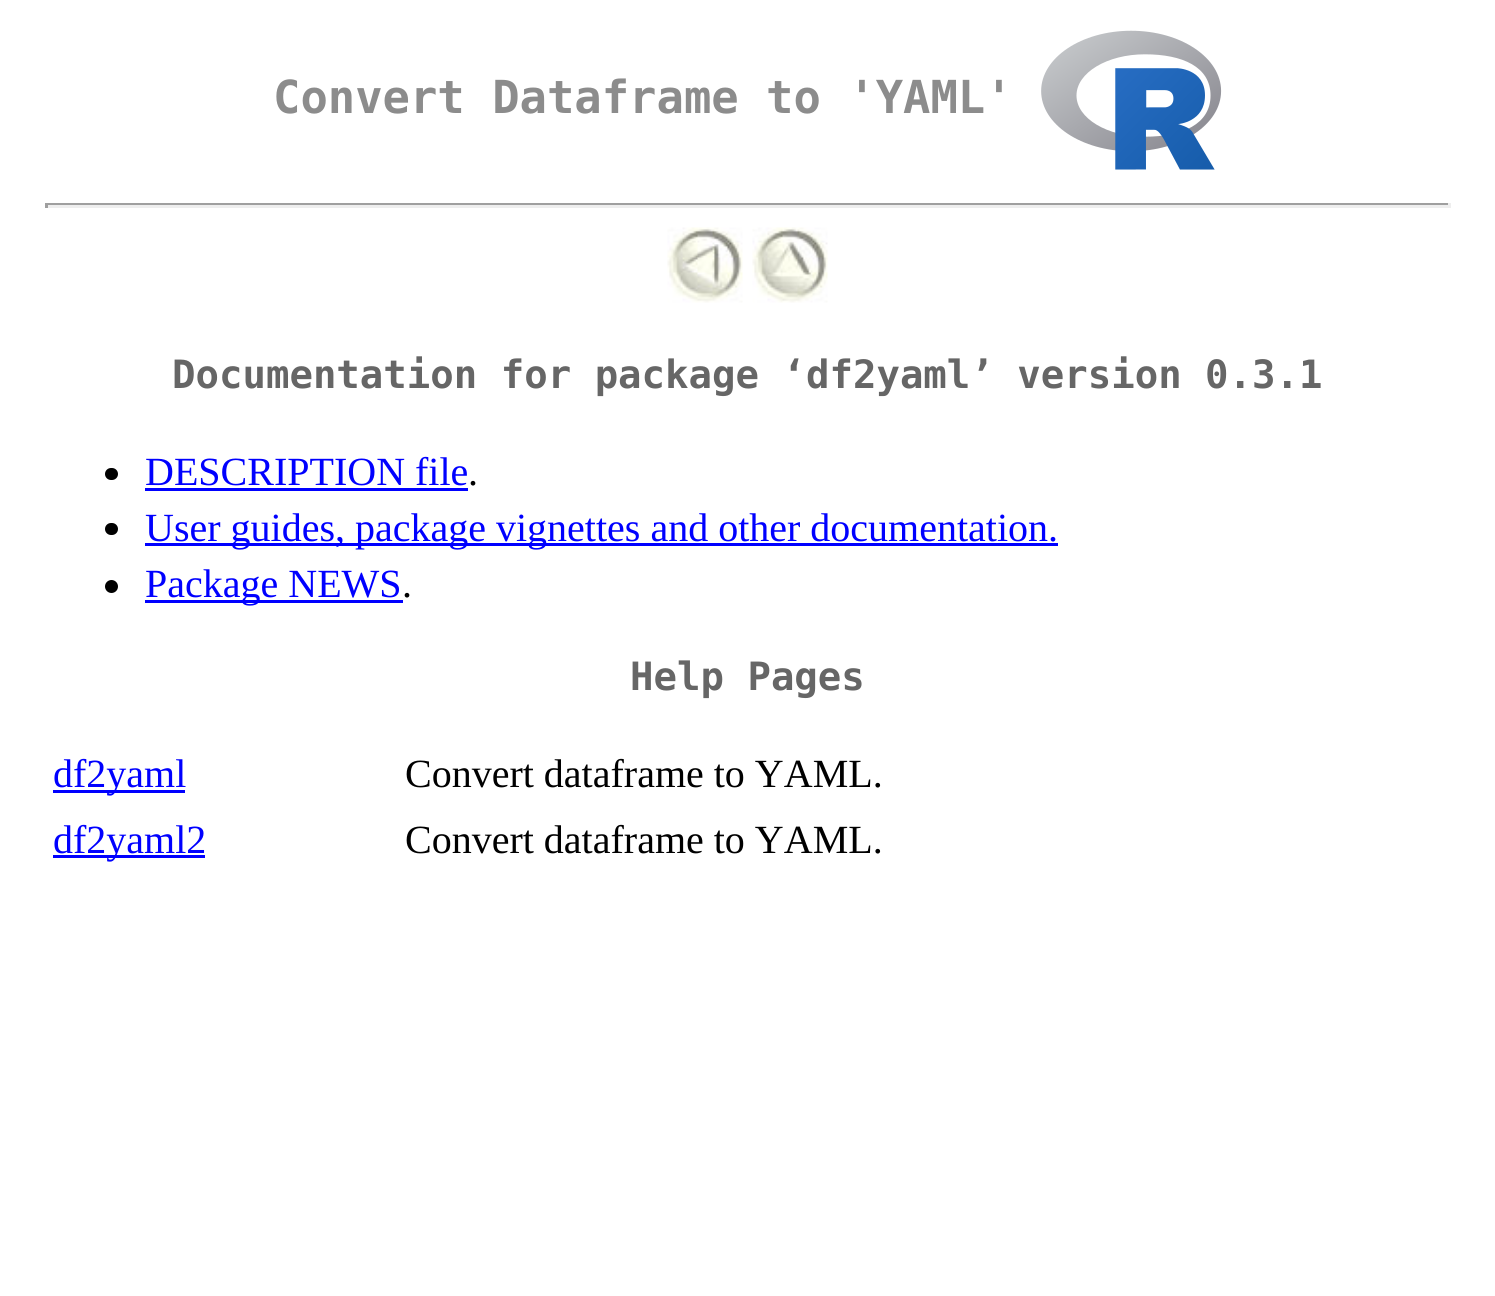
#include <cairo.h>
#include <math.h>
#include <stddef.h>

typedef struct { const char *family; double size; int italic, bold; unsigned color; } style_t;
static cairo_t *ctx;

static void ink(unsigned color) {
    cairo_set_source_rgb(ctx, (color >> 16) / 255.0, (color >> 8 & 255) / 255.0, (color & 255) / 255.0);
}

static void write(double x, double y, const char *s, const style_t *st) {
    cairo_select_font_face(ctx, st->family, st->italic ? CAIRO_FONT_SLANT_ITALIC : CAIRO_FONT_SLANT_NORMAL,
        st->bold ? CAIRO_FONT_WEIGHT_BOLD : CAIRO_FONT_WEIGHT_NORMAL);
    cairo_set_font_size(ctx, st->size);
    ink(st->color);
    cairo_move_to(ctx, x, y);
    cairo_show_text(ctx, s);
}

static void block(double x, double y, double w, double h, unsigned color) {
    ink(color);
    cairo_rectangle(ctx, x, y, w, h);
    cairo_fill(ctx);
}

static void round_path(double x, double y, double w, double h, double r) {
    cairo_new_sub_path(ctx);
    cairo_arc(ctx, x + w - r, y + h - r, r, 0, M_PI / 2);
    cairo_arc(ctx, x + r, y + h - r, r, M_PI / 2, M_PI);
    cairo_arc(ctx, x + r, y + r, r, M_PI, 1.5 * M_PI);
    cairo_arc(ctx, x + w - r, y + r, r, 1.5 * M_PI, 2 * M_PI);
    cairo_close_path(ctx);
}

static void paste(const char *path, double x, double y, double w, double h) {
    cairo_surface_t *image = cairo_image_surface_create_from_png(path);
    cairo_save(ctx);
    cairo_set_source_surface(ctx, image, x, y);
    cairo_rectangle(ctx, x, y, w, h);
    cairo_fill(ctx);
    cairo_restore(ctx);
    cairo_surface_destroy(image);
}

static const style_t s1 = {"DejaVu Sans Mono", 45.5, 0, 1, 0x8c8c8c};
static const style_t s2 = {"DejaVu Sans Mono", 39, 0, 1, 0x666666};
static const style_t s3 = {"Liberation Serif", 40, 0, 0, 0x0000ff};
static const style_t s4 = {"Liberation Serif", 40, 0, 0, 0x000000};

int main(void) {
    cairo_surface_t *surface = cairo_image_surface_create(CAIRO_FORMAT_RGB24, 1495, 1296);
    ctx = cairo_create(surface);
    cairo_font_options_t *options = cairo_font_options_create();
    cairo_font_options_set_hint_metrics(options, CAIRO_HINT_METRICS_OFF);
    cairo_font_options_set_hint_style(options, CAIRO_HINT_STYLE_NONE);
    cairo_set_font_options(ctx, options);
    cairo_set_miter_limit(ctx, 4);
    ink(0xffffff);
    cairo_paint(ctx);
    write(273, 113, "Convert Dataframe to 'YAML'", &s1);
    paste("pic1.png", 1041, 30, 181, 140);
    block(45, 203, 1405, 2, 0x9f9f9f);
    block(1448, 203, 3, 5, 0xeeeeee);
    block(45, 205, 1405, 3, 0xeeeeee);
    block(45, 203, 3, 5, 0x9f9f9f);
    paste("pic2.png", 667, 227, 76, 76);
    paste("pic3.png", 752, 227, 76, 76);
    write(172, 388, "Documentation for package ‘df2yaml’ version 0.3.1", &s2);
    ink(0x000000);
    round_path(105, 468, 13, 12, 6);
    cairo_fill(ctx);
    write(145, 485, "DESCRIPTION file", &s3);
    block(145, 488, 323, 3, 0x0000ff);
    write(468, 485, ".", &s4);
    round_path(105, 523, 13, 12, 6);
    cairo_fill(ctx);
    block(145, 543, 913, 3, 0x0000ff);
    write(145, 541, "User guides, package vignettes and other documentation.", &s3);
    ink(0x000000);
    cairo_new_path(ctx);
    cairo_arc(ctx, 111.5, 586.5, 6.5, 0, 2 * M_PI);
    cairo_fill(ctx);
    block(145, 600, 258, 3, 0x0000ff);
    write(145, 597, "Package NEWS", &s3);
    write(402, 597, ".", &s4);
    write(630, 690, "Help Pages", &s2);
    block(53, 790, 132, 3, 0x0000ff);
    write(53, 787, "df2yaml", &s3);
    write(405, 787, "Convert dataframe to YAML.", &s4);
    block(53, 855, 152, 3, 0x0000ff);
    write(53, 853, "df2yaml2", &s3);
    write(405, 853, "Convert dataframe to YAML.", &s4);
    cairo_surface_write_to_png(surface, "screenshot.png");
    cairo_font_options_destroy(options);
    cairo_destroy(ctx);
    cairo_surface_destroy(surface);
    return 0;
}
